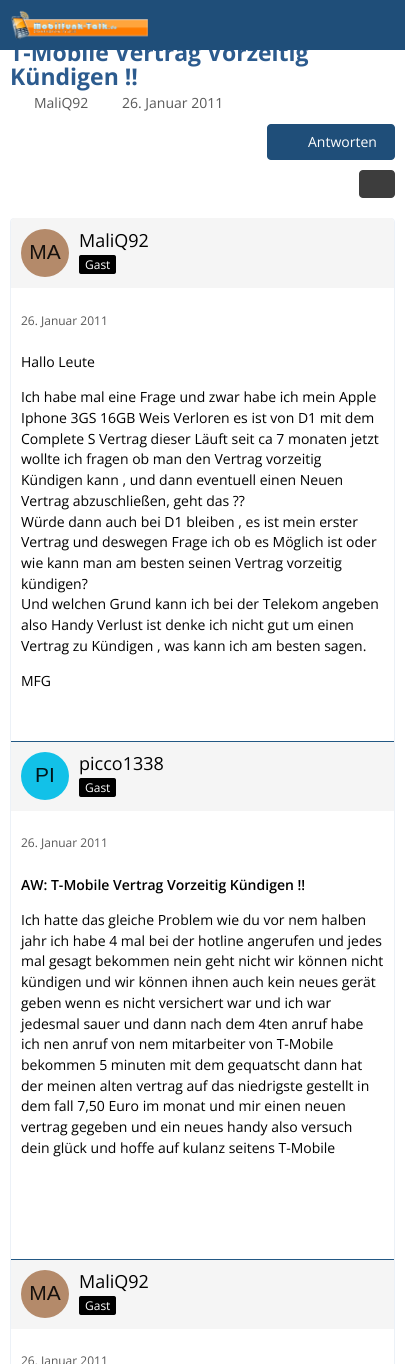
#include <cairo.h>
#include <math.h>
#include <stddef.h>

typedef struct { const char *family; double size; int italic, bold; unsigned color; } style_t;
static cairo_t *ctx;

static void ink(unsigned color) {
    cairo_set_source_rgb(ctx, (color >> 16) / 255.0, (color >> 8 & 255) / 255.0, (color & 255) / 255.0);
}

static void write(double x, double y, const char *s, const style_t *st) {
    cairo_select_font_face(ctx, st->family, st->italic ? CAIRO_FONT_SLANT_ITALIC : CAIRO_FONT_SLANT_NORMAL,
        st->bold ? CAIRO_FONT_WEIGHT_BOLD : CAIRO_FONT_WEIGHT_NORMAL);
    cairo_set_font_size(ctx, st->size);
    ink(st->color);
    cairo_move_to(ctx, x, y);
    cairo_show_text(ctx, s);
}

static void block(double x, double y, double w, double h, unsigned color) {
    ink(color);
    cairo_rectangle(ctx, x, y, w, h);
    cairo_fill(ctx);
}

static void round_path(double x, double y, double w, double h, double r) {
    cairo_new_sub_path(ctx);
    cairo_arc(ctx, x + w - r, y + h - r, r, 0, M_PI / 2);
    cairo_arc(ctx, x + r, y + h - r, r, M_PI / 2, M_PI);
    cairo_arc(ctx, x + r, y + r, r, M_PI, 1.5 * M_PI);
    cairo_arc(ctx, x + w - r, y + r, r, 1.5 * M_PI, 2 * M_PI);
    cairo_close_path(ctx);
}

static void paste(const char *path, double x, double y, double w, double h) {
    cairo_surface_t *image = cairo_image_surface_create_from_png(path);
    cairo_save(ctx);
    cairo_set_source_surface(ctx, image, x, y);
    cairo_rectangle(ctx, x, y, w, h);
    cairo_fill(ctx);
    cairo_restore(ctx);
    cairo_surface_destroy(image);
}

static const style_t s1 = {"Open Sans", 23, 0, 1, 0x2c5b8e};
static const style_t s2 = {"Open Sans", 14, 0, 0, 0x595959};
static const style_t s3 = {"Open Sans", 14, 0, 0, 0xffffff};
static const style_t s4 = {"Open Sans", 18, 0, 0, 0x000000};
static const style_t s5 = {"Open Sans", 12, 0, 0, 0xffffff};
static const style_t s6 = {"Open Sans", 12, 0, 0, 0x595959};
static const style_t s7 = {"Open Sans", 14, 0, 0, 0x000000};
static const style_t s8 = {"Open Sans SemiBold", 14, 0, 0, 0x000000};

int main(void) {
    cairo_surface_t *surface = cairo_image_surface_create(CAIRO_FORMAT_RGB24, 405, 1364);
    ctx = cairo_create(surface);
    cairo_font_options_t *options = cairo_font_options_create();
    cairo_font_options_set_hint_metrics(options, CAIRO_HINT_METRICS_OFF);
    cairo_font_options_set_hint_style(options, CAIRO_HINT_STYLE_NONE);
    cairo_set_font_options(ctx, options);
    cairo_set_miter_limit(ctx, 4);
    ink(0xffffff);
    cairo_paint(ctx);
    write(10, 61, "T-Mobile Vertrag Vorzeitig", &s1);
    block(0, 0, 405, 50, 0x1f4e79);
    paste("pic1.png", 11, 10, 137, 30);
    write(10, 85, "Kündigen !!", &s1);
    write(34, 108, "MaliQ92", &s2);
    write(122, 108, "26. Januar 2011", &s2);
    ink(0x1f4e79);
    round_path(267, 124, 128, 36, 4);
    cairo_fill(ctx);
    write(308, 147, "Antworten", &s3);
    ink(0x3d3d3d);
    round_path(359, 170, 36, 28, 4);
    cairo_fill(ctx);
    round_path(10.5, 218.5, 384, 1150, 3.5);
    ink(0xecf1f7);
    cairo_set_line_width(ctx, 1);
    cairo_stroke(ctx);
    ink(0xf5f5f5);
    cairo_new_path(ctx);
    cairo_move_to(ctx, 15, 218);
    cairo_line_to(ctx, 390, 218);
    cairo_curve_to(ctx, 392, 218, 394, 220, 394, 222);
    cairo_line_to(ctx, 394, 288);
    cairo_line_to(ctx, 11, 288);
    cairo_line_to(ctx, 11, 222);
    cairo_curve_to(ctx, 11, 220, 13, 218, 15, 218);
    cairo_close_path(ctx);
    cairo_fill(ctx);
    paste("pic2.png", 21, 229, 48, 48);
    write(79, 247, "MaliQ92", &s4);
    round_path(79, 255, 37, 19, 2);
    cairo_fill(ctx);
    write(85, 269, "Gast", &s5);
    write(21, 325, "26. Januar 2011", &s6);
    write(21, 367, "Hallo Leute", &s7);
    write(21, 402, "Ich habe mal eine Frage und zwar habe ich mein Apple", &s7);
    write(21, 423, "Iphone 3GS 16GB Weis Verloren es ist von D1 mit dem", &s7);
    write(21, 444, "Complete S Vertrag dieser Läuft seit ca 7 monaten jetzt", &s7);
    write(21, 464, "wollte ich fragen ob man den Vertrag vorzeitig", &s7);
    write(21, 485, "Kündigen kann , und dann eventuell einen Neuen", &s7);
    write(21, 506, "Vertrag abzuschließen, geht das ?\077", &s7);
    write(21, 527, "Würde dann auch bei D1 bleiben , es ist mein erster", &s7);
    write(21, 547, "Vertrag und deswegen Frage ich ob es Möglich ist oder", &s7);
    write(21, 568, "wie kann man am besten seinen Vertrag vorzeitig", &s7);
    write(21, 589, "kündigen?", &s7);
    write(21, 609, "Und welchen Grund kann ich bei der Telekom angeben", &s7);
    write(21, 630, "also Handy Verlust ist denke ich nicht gut um einen", &s7);
    write(21, 651, "Vertrag zu Kündigen , was kann ich am besten sagen.", &s7);
    write(21, 686, "MFG", &s7);
    block(11, 742, 383, 69, 0xf5f5f5);
    block(11, 741, 383, 1, 0x235884);
    paste("pic3.png", 21, 752, 48, 48);
    write(79, 770, "picco1338", &s4);
    round_path(79, 778, 37, 19, 2);
    cairo_fill(ctx);
    write(85, 792, "Gast", &s5);
    write(21, 847, "26. Januar 2011", &s6);
    write(21, 890, "AW: T-Mobile Vertrag Vorzeitig Kündigen !!", &s8);
    write(21, 925, "Ich hatte das gleiche Problem wie du vor nem halben", &s7);
    write(21, 946, "jahr ich habe 4 mal bei der hotline angerufen und jedes", &s7);
    write(21, 966, "mal gesagt bekommen nein geht nicht wir können nicht", &s7);
    write(21, 987, "kündigen und wir können ihnen auch kein neues gerät", &s7);
    write(21, 1008, "geben wenn es nicht versichert war und ich war", &s7);
    write(21, 1029, "jedesmal sauer und dann nach dem 4ten anruf habe", &s7);
    write(21, 1049, "ich nen anruf von nem mitarbeiter von T-Mobile", &s7);
    write(21, 1070, "bekommen 5 minuten mit dem gequatscht dann hat", &s7);
    write(21, 1091, "der meinen alten vertrag auf das niedrigste gestellt in", &s7);
    write(21, 1111, "dem fall 7,50 Euro im monat und mir einen neuen", &s7);
    write(21, 1132, "vertrag gegeben und ein neues handy also versuch", &s7);
    write(21, 1153, "dein glück und hoffe auf kulanz seitens T-Mobile", &s7);
    block(11, 1260, 383, 69, 0xf5f5f5);
    block(11, 1259, 383, 1, 0x235884);
    paste("pic2.png", 21, 1270, 48, 48);
    write(79, 1288, "MaliQ92", &s4);
    round_path(79, 1296, 37, 19, 2);
    cairo_fill(ctx);
    write(85, 1310, "Gast", &s5);
    write(21, 1365, "26. Januar 2011", &s6);
    cairo_surface_write_to_png(surface, "screenshot.png");
    cairo_font_options_destroy(options);
    cairo_destroy(ctx);
    cairo_surface_destroy(surface);
    return 0;
}
